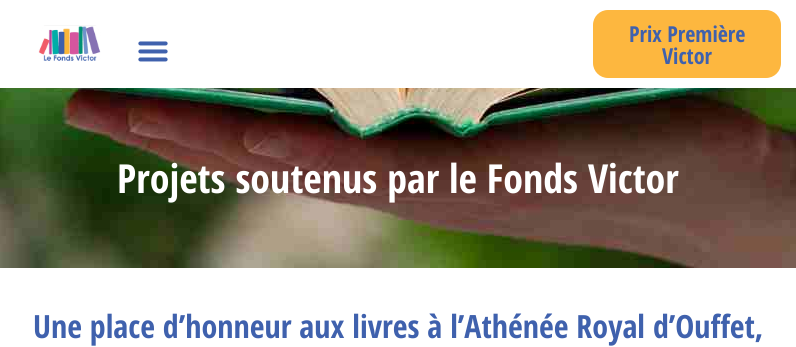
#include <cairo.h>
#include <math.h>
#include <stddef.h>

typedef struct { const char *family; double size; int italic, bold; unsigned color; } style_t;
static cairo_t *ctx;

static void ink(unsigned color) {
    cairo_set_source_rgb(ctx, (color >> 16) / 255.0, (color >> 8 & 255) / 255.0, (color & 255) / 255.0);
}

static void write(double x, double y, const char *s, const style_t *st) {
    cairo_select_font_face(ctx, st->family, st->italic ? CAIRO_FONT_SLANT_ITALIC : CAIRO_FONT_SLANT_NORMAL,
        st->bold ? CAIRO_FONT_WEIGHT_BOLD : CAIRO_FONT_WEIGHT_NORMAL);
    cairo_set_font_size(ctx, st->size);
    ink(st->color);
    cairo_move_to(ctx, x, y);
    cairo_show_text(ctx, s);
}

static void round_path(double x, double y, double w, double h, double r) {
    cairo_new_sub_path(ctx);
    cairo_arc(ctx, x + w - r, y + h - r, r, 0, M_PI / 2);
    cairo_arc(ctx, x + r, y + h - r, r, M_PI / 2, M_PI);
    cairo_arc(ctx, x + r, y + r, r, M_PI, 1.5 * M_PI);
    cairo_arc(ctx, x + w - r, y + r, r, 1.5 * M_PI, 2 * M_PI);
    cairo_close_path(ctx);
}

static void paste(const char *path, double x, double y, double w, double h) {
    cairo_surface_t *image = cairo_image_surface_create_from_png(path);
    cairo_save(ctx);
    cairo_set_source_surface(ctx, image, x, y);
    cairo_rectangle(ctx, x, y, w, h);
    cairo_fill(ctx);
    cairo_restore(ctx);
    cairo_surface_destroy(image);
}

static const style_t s1 = {"Open Sans Condensed", 22, 0, 1, 0x3f61ad};
static const style_t s2 = {"Open Sans Condensed", 40, 0, 1, 0xffffff};
static const style_t s3 = {"Open Sans Condensed", 32, 0, 1, 0x3f61ad};

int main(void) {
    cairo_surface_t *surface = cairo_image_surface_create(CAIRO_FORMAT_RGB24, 796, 347);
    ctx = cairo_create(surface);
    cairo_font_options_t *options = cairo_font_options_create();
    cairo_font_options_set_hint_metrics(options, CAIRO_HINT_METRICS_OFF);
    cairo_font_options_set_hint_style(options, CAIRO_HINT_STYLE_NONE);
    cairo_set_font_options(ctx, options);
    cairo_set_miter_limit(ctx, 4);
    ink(0xffffff);
    cairo_paint(ctx);
    paste("pic1.png", 38, 25, 63, 36);
    paste("pic2.png", 138, 41, 30, 21);
    ink(0xfdb73f);
    round_path(593, 10, 188, 68, 15);
    cairo_fill(ctx);
    write(629, 42, "Prix Première", &s1);
    write(662, 64, "Victor", &s1);
    paste("pic3.png", 0, 88, 796, 180);
    write(117, 193, "Projets soutenus par le Fonds Victor", &s2);
    write(33, 338, "Une place d’honneur aux livres à l’Athénée Royal d’Ouffet,", &s3);
    cairo_surface_write_to_png(surface, "screenshot.png");
    cairo_font_options_destroy(options);
    cairo_destroy(ctx);
    cairo_surface_destroy(surface);
    return 0;
}
